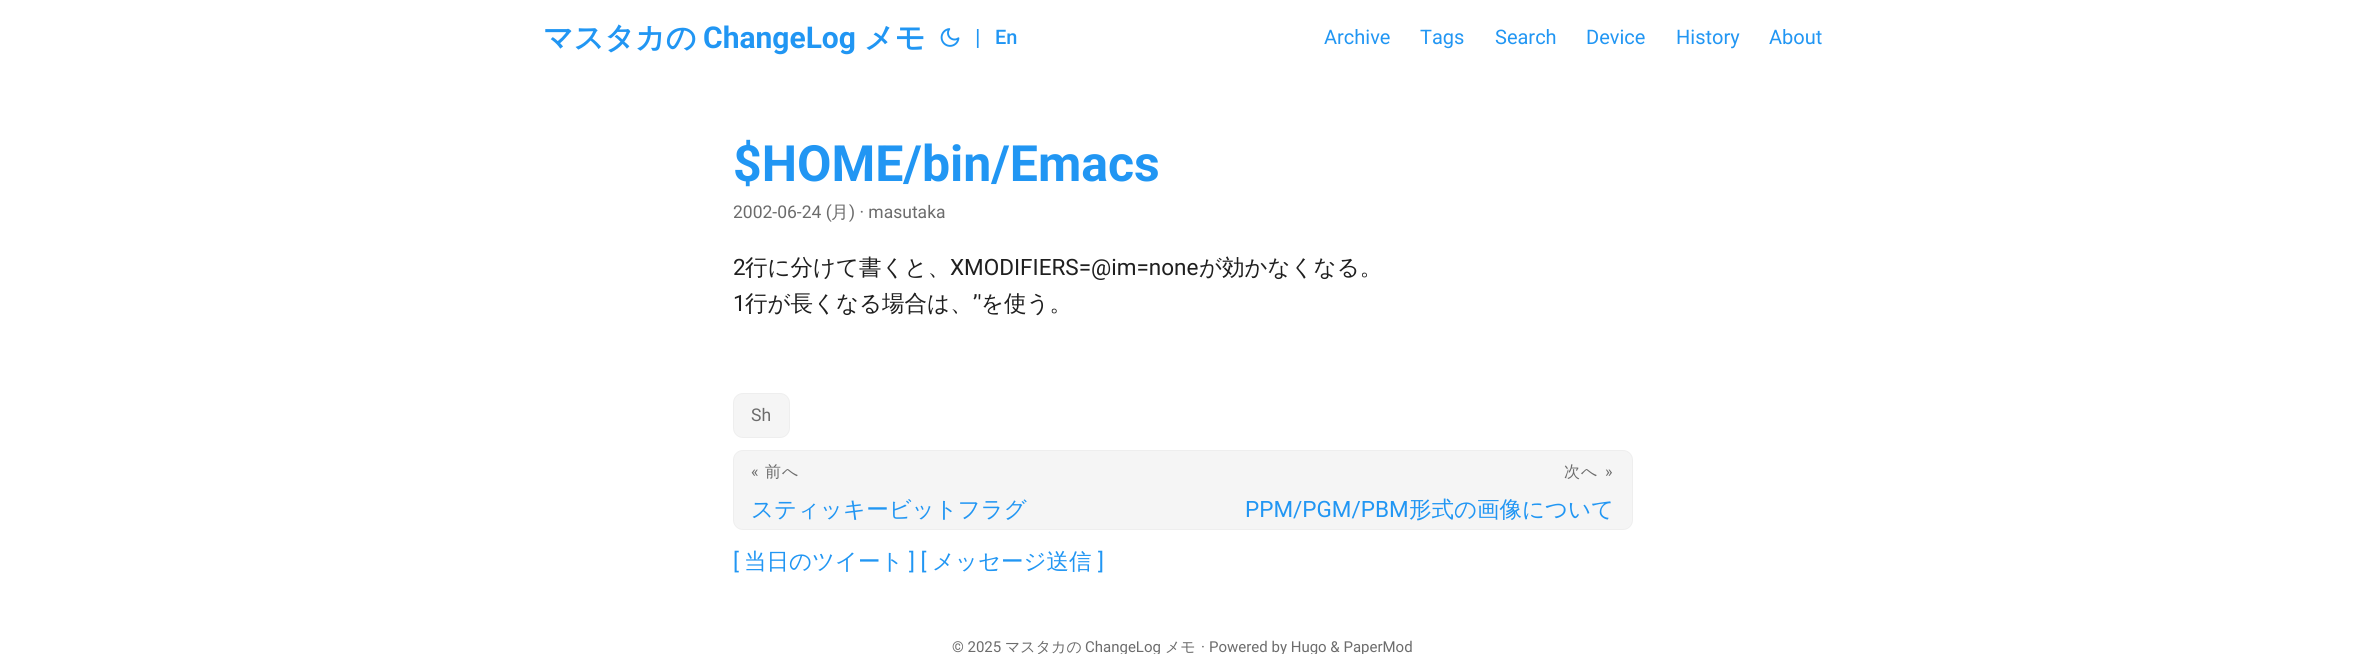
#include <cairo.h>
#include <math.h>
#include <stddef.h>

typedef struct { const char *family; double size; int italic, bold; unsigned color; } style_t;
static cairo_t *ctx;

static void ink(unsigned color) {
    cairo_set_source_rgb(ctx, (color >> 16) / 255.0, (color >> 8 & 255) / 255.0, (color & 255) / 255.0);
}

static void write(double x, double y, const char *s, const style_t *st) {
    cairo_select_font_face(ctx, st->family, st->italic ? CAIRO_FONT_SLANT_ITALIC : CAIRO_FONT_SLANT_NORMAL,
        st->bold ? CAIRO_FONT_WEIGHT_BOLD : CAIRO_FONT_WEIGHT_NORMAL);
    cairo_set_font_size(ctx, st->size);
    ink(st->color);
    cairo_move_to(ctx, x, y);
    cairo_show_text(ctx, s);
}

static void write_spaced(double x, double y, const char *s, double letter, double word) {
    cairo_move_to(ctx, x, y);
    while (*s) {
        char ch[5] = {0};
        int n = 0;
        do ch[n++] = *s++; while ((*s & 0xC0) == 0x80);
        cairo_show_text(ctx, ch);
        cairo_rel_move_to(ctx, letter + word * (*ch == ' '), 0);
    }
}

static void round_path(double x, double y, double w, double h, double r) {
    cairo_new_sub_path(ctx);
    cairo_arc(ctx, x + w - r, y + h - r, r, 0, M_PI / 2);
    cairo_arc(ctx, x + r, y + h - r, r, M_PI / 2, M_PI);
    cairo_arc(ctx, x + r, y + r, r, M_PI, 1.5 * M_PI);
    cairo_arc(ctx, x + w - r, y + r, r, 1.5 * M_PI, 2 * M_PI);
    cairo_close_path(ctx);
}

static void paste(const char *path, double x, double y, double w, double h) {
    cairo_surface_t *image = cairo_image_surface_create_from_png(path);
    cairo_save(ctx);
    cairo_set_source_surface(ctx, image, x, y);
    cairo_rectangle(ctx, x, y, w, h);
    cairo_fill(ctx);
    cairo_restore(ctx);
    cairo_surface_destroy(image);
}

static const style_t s1 = {"WenQuanYi Zen Hei", 30, 0, 1, 0x2196f3};
static const style_t s2 = {"Roboto", 30, 0, 1, 0x2196f3};
static const style_t s3 = {"Roboto", 22.5, 0, 0, 0x2196f3};
static const style_t s4 = {"Roboto Medium", 20, 0, 0, 0x2196f3};
static const style_t s5 = {"Roboto", 20, 0, 0, 0x2196f3};
static const style_t s6 = {"Roboto", 50, 0, 1, 0x2196f3};
static const style_t s7 = {"Roboto", 17.5, 0, 0, 0x6c6c6c};
static const style_t s8 = {"WenQuanYi Zen Hei Medium", 17.5, 0, 0, 0x6c6c6c};
static const style_t s9 = {"Roboto", 22.5, 0, 0, 0x1f1f1f};
static const style_t s10 = {"WenQuanYi Zen Hei Medium", 22.5, 0, 0, 0x1f1f1f};
static const style_t s11 = {"WenQuanYi Zen Hei Medium", 22.5, 0, 0, 0x2196f3};
static const style_t s12 = {"Roboto", 15, 0, 0, 0x6c6c6c};
static const style_t s13 = {"WenQuanYi Zen Hei Medium", 15, 0, 0, 0x6c6c6c};

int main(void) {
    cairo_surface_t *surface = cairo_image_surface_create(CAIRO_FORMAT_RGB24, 2364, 654);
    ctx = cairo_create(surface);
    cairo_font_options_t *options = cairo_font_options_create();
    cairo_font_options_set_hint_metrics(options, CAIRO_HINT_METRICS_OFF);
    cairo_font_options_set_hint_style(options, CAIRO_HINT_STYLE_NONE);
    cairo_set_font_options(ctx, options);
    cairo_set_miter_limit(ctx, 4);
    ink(0xffffff);
    cairo_paint(ctx);
    write(543, 48, "マスタカの", &s1);
    write(703, 48, "ChangeLog", &s2);
    write(864, 48, "メモ", &s1);
    paste("pic1.png", 940, 28, 20, 19);
    write(975, 45, "|", &s3);
    write(995, 44, "En", &s4);
    write(1324, 44, "Archive", &s5);
    write(1420, 44, "Tags", &s5);
    write(1495, 44, "Search", &s5);
    write(1586, 44, "Device", &s5);
    write(1676, 44, "History", &s5);
    write(1769, 44, "About", &s5);
    write(733, 181, "$HOME/bin/Emacs", &s6);
    write(733, 218, "2002-06-24 (", &s7);
    write(831, 218, "月", &s8);
    write(849, 218, ") · masutaka", &s7);
    write(733, 275, "2", &s9);
    write(745, 275, "行に分けて書くと、", &s10);
    write(950, 275, "XMODIFIERS=@im=none", &s9);
    write(1199, 275, "が効かなくなる。", &s10);
    write(733, 311, "1", &s9);
    write(745, 311, "行が長くなる場合は、", &s10);
    write(973, 311, "’'", &s9);
    write(981, 311, "を使う。", &s10);
    ink(0xf5f5f5);
    round_path(733.5, 393.5, 56, 44, 9.5);
    cairo_fill_preserve(ctx);
    ink(0xeeeeee);
    cairo_set_line_width(ctx, 1);
    cairo_stroke(ctx);
    write(751, 421, "Sh", &s7);
    ink(0xf5f5f5);
    round_path(733.5, 450.5, 899, 79, 9.5);
    cairo_fill_preserve(ctx);
    ink(0xeeeeee);
    cairo_stroke(ctx);
    cairo_set_font_size(ctx, 16);
    ink(0x6c6c6c);
    write_spaced(751, 477, "«", 1, 0);
    cairo_select_font_face(ctx, "WenQuanYi Zen Hei Medium", CAIRO_FONT_SLANT_NORMAL, CAIRO_FONT_WEIGHT_NORMAL);
    write_spaced(765, 477, "前へ", 1, 0);
    write(751, 517, "スティッキービットフラグ", &s11);
    cairo_set_font_size(ctx, 16);
    ink(0x6c6c6c);
    write_spaced(1564, 477, "次へ", 1, 0);
    cairo_select_font_face(ctx, "Roboto", CAIRO_FONT_SLANT_NORMAL, CAIRO_FONT_WEIGHT_NORMAL);
    write_spaced(1605, 477, "»", 1, 0);
    write(1245, 517, "PPM/PGM/PBM", &s3);
    write(1409, 517, "形式の画像について", &s11);
    write(733, 569, "[", &s3);
    write(744, 569, "当日のツイート", &s11);
    write(909, 569, "] [", &s3);
    write(932, 569, "メッセージ送信", &s11);
    write(1098, 569, "]", &s3);
    write(952, 652, "© 2025", &s12);
    write(1005, 652, "マスタカの", &s13);
    write(1085, 652, "ChangeLog", &s12);
    write(1165, 652, "メモ", &s13);
    write(1201, 652, "·", &s12);
    write(1209, 652, "Powered by Hugo & PaperMod", &s12);
    cairo_surface_write_to_png(surface, "screenshot.png");
    cairo_font_options_destroy(options);
    cairo_destroy(ctx);
    cairo_surface_destroy(surface);
    return 0;
}
